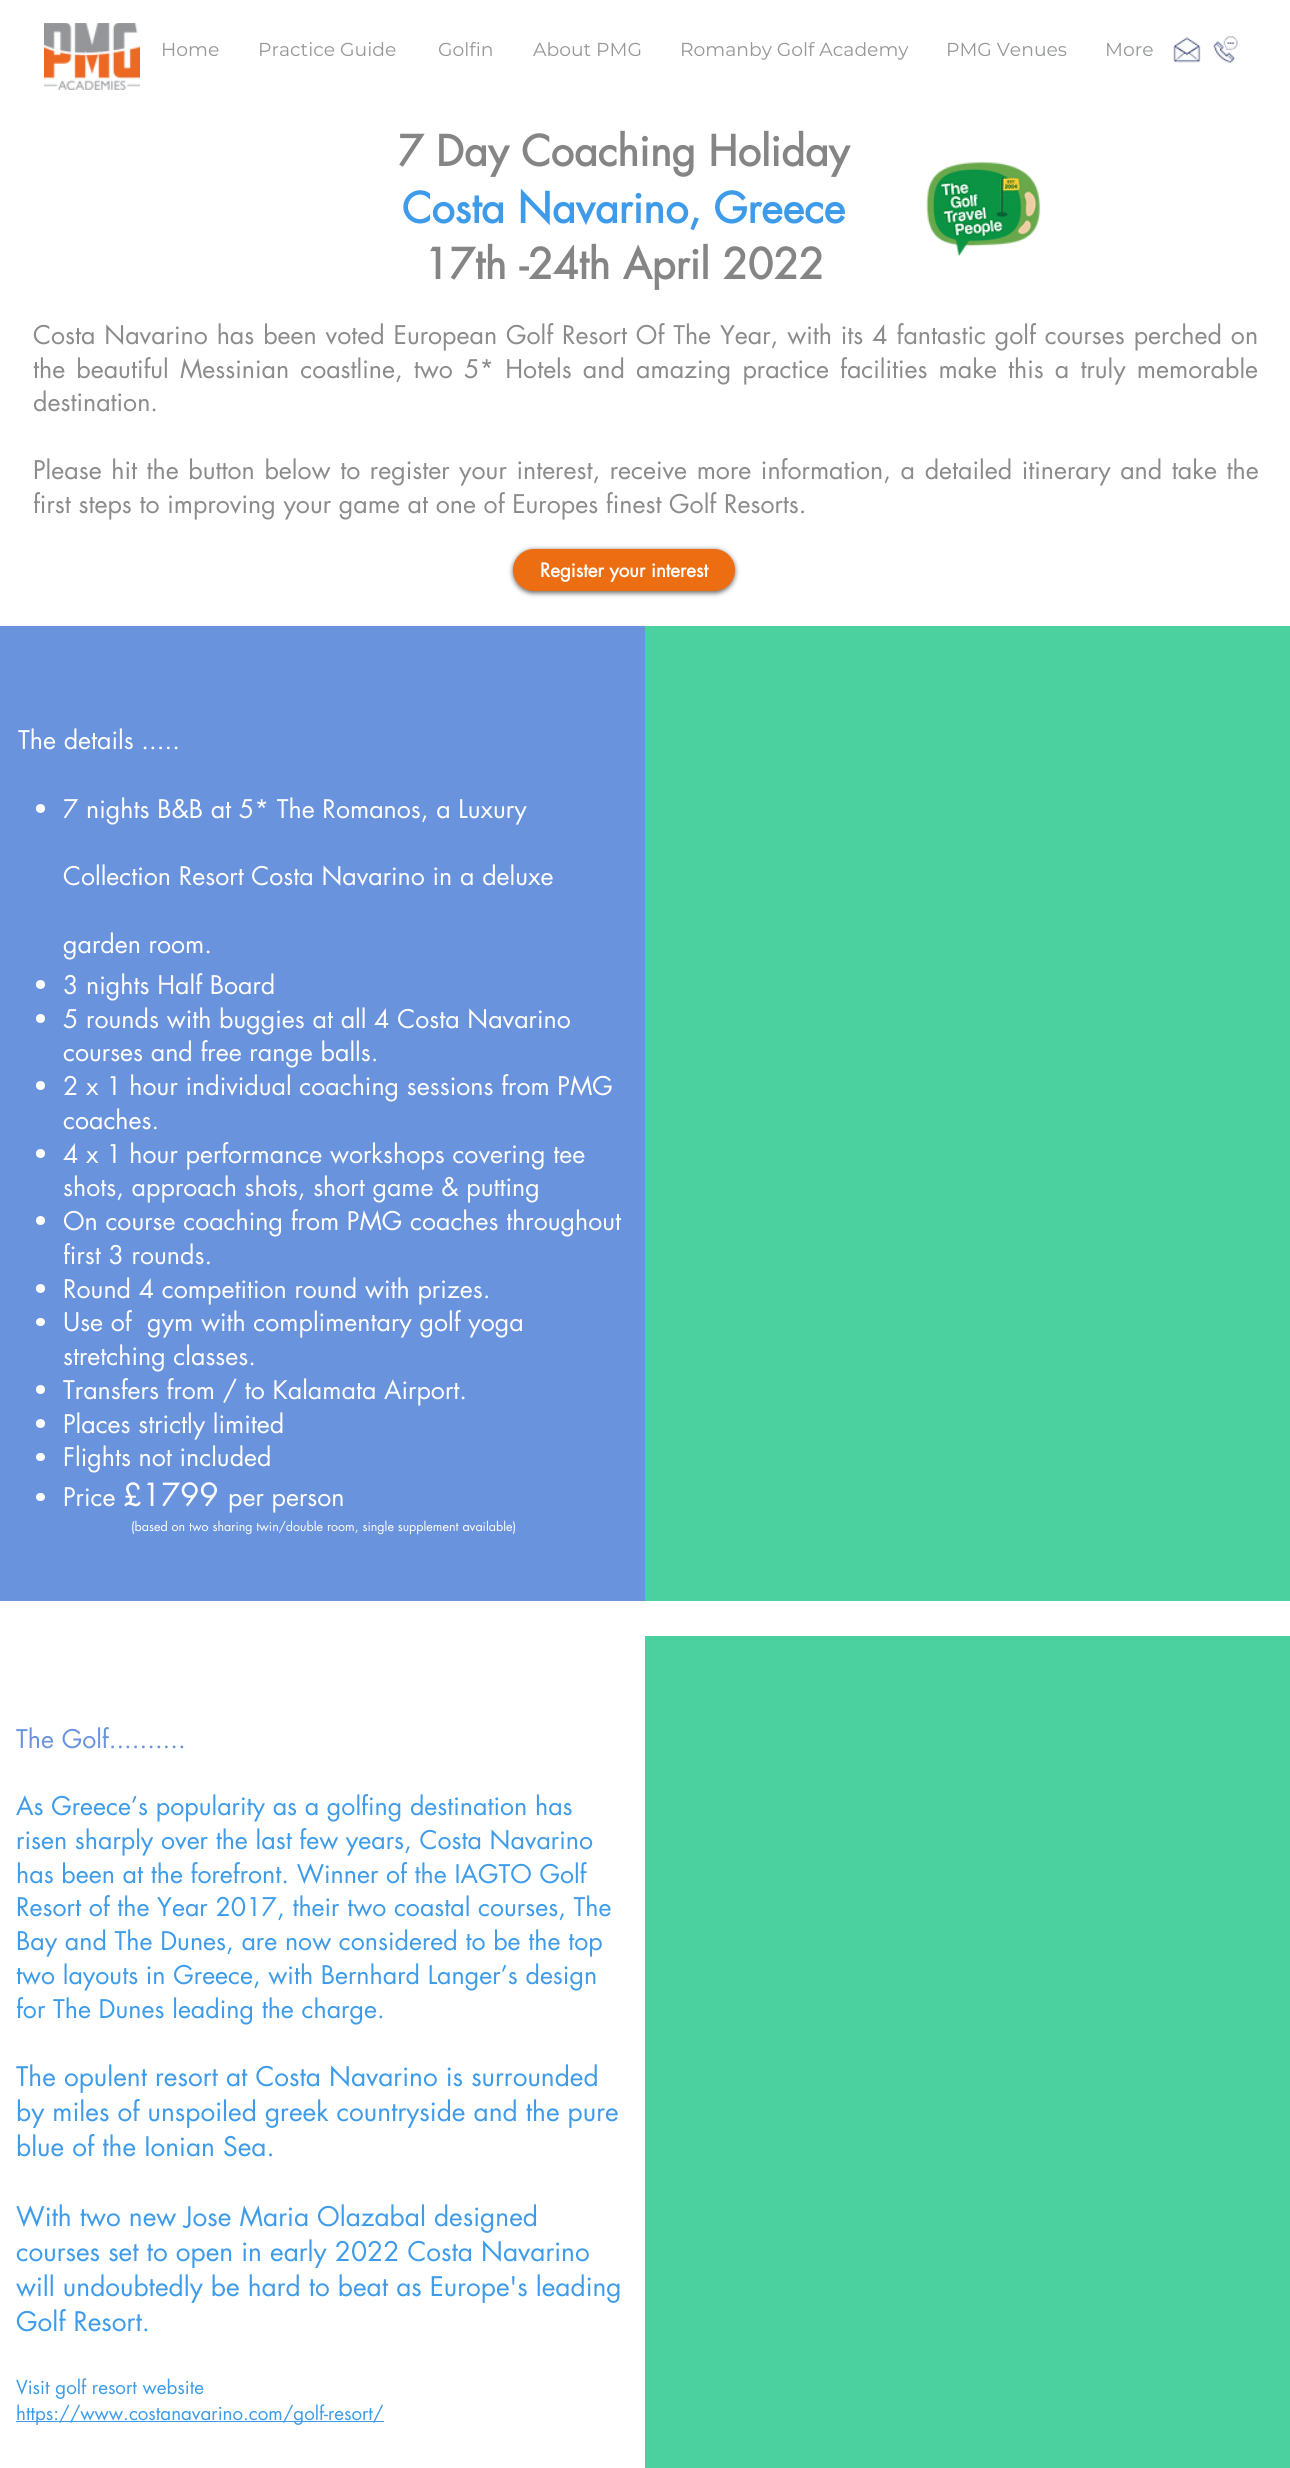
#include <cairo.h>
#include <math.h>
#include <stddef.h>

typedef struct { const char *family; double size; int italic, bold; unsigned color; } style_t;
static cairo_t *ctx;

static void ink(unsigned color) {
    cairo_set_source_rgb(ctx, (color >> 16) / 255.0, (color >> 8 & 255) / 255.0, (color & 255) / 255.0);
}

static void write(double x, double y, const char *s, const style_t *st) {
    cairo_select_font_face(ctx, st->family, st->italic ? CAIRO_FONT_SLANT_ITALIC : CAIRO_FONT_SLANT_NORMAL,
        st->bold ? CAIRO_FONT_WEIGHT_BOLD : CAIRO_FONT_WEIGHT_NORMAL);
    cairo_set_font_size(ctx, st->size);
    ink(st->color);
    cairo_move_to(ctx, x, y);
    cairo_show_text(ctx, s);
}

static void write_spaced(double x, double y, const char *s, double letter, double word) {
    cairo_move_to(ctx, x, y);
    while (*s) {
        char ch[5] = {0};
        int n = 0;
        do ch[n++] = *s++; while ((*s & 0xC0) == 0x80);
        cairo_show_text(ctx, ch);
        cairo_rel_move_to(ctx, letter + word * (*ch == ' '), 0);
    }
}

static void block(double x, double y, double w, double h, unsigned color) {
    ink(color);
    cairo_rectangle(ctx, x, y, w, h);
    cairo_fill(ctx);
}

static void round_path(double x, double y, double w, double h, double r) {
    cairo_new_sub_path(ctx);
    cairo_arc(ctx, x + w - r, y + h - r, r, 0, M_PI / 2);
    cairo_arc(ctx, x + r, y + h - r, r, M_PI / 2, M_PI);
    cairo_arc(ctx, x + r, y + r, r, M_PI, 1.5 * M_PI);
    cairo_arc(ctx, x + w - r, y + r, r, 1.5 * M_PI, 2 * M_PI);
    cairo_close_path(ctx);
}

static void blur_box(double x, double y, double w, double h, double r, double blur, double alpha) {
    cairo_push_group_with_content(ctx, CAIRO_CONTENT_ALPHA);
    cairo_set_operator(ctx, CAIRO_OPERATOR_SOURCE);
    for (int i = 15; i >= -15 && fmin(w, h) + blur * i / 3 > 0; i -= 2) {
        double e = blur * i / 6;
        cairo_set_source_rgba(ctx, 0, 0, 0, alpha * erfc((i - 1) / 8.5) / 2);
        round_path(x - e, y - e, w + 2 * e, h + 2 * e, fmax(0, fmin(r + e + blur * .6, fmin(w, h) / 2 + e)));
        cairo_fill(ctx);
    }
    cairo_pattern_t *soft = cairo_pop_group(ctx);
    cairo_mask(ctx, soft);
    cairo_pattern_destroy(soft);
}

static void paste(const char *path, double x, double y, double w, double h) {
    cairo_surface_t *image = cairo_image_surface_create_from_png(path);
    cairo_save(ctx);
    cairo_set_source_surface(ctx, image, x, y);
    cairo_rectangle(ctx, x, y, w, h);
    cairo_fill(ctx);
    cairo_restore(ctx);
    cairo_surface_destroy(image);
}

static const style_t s1 = {"Montserrat", 18.75, 0, 0, 0x959699};
static const style_t s2 = {"futura", 41.25, 0, 1, 0x858585};
static const style_t s3 = {"futura", 41.25, 0, 1, 0x3d9be9};
static const style_t s4 = {"futura", 25, 0, 0, 0x8b8b8b};
static const style_t s5 = {"futura", 18.75, 0, 1, 0xffffff};
static const style_t s6 = {"futura", 25, 0, 0, 0xffffff};
static const style_t s7 = {"futura", 31, 0, 0, 0xffffff};
static const style_t s8 = {"futura", 12.5, 0, 0, 0xffffff};
static const style_t s9 = {"futura", 25, 0, 0, 0x6a93de};
static const style_t s10 = {"futura", 25, 0, 0, 0x3d9be9};
static const style_t s11 = {"futura", 26.25, 0, 0, 0x3d9be9};
static const style_t s12 = {"futura", 18.75, 0, 0, 0x3d9be9};

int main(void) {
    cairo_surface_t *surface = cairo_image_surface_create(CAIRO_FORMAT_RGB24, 1290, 2468);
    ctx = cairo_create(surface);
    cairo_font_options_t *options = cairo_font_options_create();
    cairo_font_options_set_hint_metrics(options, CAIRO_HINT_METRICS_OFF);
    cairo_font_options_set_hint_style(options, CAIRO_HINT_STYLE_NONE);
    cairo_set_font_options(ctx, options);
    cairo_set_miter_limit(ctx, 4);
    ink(0xffffff);
    cairo_paint(ctx);
    paste("pic1.png", 44, 23, 96, 67);
    write(161, 56, "Home", &s1);
    write(258, 56, "Practice Guide", &s1);
    write(438, 56, "Golfin", &s1);
    write(533, 56, "About PMG", &s1);
    write(680, 56, "Romanby Golf Academy", &s1);
    write(946, 56, "PMG Venues", &s1);
    write(1105, 56, "More", &s1);
    paste("pic2.png", 1173, 37, 28, 26);
    paste("pic3.png", 1213, 36, 25, 27);
    write(398, 166, "7 Day Coaching Holiday", &s2);
    write(402, 223, "Costa Navarino, Greece", &s3);
    write(424, 279, "17th -24th April 2022", &s2);
    paste("pic4.png", 926, 161, 115, 96);
    cairo_select_font_face(ctx, "futura", CAIRO_FONT_SLANT_NORMAL, CAIRO_FONT_WEIGHT_NORMAL);
    cairo_set_font_size(ctx, 25);
    ink(0x8b8b8b);
    write_spaced(33, 344, "Costa Navarino has been voted European Golf Resort Of The Year, with its 4 fantastic golf courses perched on", 0, 1.2);
    write_spaced(33, 378, "the beautiful Messinian coastline, two 5* Hotels and amazing practice facilities make this a truly memorable", 0, 3.4);
    write(33, 411, "destination.", &s4);
    write_spaced(33, 479, "Please hit the button below to register your interest, receive more information, a detailed itinerary and take the", 0, 1.9);
    write(33, 513, "first steps to improving your game at one of Europes finest Golf Resorts.", &s4);
    ink(0x000000);
    blur_box(513, 550, 222, 43, 21.5, 2.5, 0.6);
    ink(0xed6d12);
    round_path(513, 549, 222, 42, 21);
    cairo_fill(ctx);
    write(540, 577, "Register your interest", &s5);
    block(0, 626, 645, 975, 0x6a93de);
    write(18, 749, "The details .....", &s6);
    cairo_new_path(ctx);
    cairo_arc(ctx, 40.5, 808.5, 4.5, 0, 2 * M_PI);
    cairo_fill(ctx);
    write(63, 818, "7 nights B&B at 5* The Romanos, a Luxury", &s6);
    write(63, 885, "Collection Resort Costa Navarino in a deluxe", &s6);
    write(63, 953, "garden room.", &s6);
    cairo_new_path(ctx);
    cairo_arc(ctx, 40.5, 984.5, 4.5, 0, 2 * M_PI);
    cairo_fill(ctx);
    write(63, 994, "3 nights Half Board", &s6);
    cairo_new_path(ctx);
    cairo_arc(ctx, 40.5, 1018.5, 4.5, 0, 2 * M_PI);
    cairo_fill(ctx);
    write(63, 1028, "5 rounds with buggies at all 4 Costa Navarino", &s6);
    write(63, 1061, "courses and free range balls.", &s6);
    cairo_new_path(ctx);
    cairo_arc(ctx, 40.5, 1085.5, 4.5, 0, 2 * M_PI);
    cairo_fill(ctx);
    write(63, 1095, "2 x 1 hour individual coaching sessions from PMG", &s6);
    write(63, 1129, "coaches.", &s6);
    cairo_new_path(ctx);
    cairo_arc(ctx, 40.5, 1153.5, 4.5, 0, 2 * M_PI);
    cairo_fill(ctx);
    write(63, 1163, "4 x 1 hour performance workshops covering tee", &s6);
    write(63, 1196, "shots, approach shots, short game & putting", &s6);
    cairo_new_path(ctx);
    cairo_arc(ctx, 40.5, 1220.5, 4.5, 0, 2 * M_PI);
    cairo_fill(ctx);
    write(63, 1230, "On course coaching from PMG coaches throughout", &s6);
    write(63, 1264, "first 3 rounds.", &s6);
    cairo_new_path(ctx);
    cairo_arc(ctx, 40.5, 1288.5, 4.5, 0, 2 * M_PI);
    cairo_fill(ctx);
    write(63, 1298, "Round 4 competition round with prizes.", &s6);
    round_path(36, 1318, 9, 8, 4);
    cairo_fill(ctx);
    write(63, 1331, "Use of  gym with complimentary golf yoga", &s6);
    write(63, 1365, "stretching classes.", &s6);
    cairo_new_path(ctx);
    cairo_arc(ctx, 40.5, 1389.5, 4.5, 0, 2 * M_PI);
    cairo_fill(ctx);
    write(63, 1399, "Transfers from / to Kalamata Airport.", &s6);
    cairo_new_path(ctx);
    cairo_arc(ctx, 40.5, 1423.5, 4.5, 0, 2 * M_PI);
    cairo_fill(ctx);
    write(63, 1433, "Places strictly limited", &s6);
    round_path(36, 1453, 9, 8, 4);
    cairo_fill(ctx);
    write(63, 1466, "Flights not included", &s6);
    round_path(36, 1493, 9, 8, 4);
    cairo_fill(ctx);
    write(63, 1506, "Price", &s6);
    write(123, 1506, "£1799", &s7);
    write(228, 1506, "per person", &s6);
    write(131, 1531, "(based on two sharing twin/double room, single supplement available)", &s8);
    block(645, 626, 645, 975, 0x4bd1a0);
    write(16, 1748, "The Golf..........", &s9);
    write(16, 1815, "As Greece’s popularity as a golfing destination has", &s10);
    write(16, 1849, "risen sharply over the last few years, Costa Navarino", &s10);
    write(16, 1883, "has been at the forefront. Winner of the IAGTO Golf", &s10);
    write(16, 1916, "Resort of the Year 2017, their two coastal courses, The", &s10);
    write(16, 1950, "Bay and The Dunes, are now considered to be the top", &s10);
    write(16, 1984, "two layouts in Greece, with Bernhard Langer’s design", &s10);
    write(16, 2018, "for The Dunes leading the charge.", &s10);
    write(16, 2086, "The opulent resort at Costa Navarino is surrounded", &s11);
    write(16, 2121, "by miles of unspoiled greek countryside and the pure", &s11);
    write(16, 2156, "blue of the Ionian Sea.", &s11);
    write(16, 2226, "With two new Jose Maria Olazabal designed", &s11);
    write(16, 2261, "courses set to open in early 2022 Costa Navarino", &s11);
    write(16, 2296, "will undoubtedly be hard to beat as Europe's leading", &s11);
    write(16, 2331, "Golf Resort.", &s11);
    write(16, 2394, "Visit golf resort website", &s12);
    block(16, 2421, 368, 1, 0x3d9be9);
    write(16, 2420, "https://www.costanavarino.com/golf-resort/", &s12);
    block(645, 1636, 645, 832, 0x4bd1a0);
    cairo_surface_write_to_png(surface, "screenshot.png");
    cairo_font_options_destroy(options);
    cairo_destroy(ctx);
    cairo_surface_destroy(surface);
    return 0;
}
